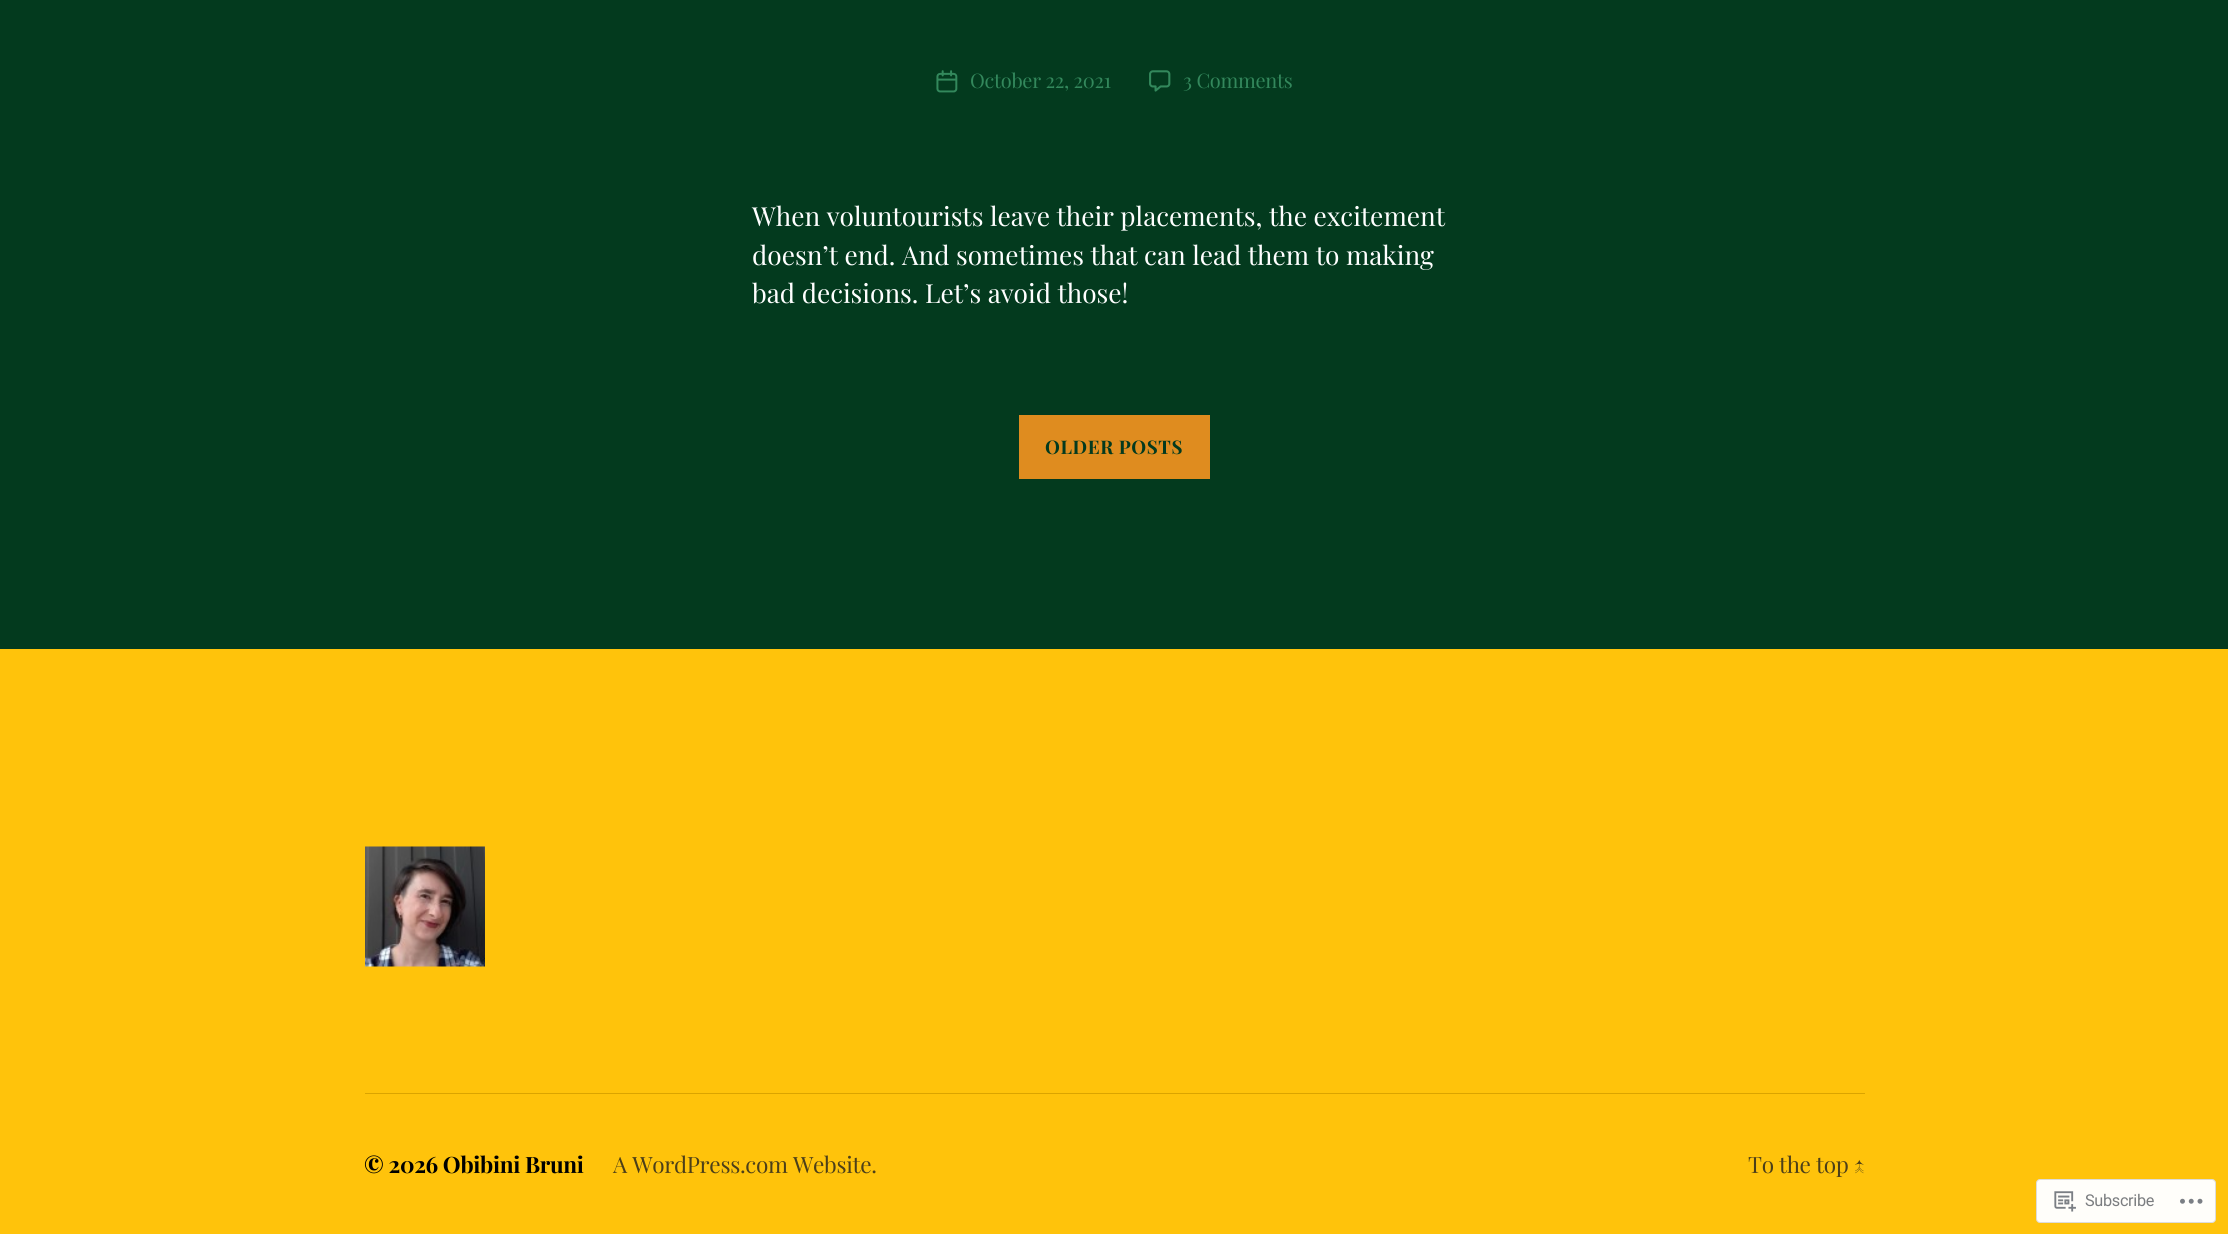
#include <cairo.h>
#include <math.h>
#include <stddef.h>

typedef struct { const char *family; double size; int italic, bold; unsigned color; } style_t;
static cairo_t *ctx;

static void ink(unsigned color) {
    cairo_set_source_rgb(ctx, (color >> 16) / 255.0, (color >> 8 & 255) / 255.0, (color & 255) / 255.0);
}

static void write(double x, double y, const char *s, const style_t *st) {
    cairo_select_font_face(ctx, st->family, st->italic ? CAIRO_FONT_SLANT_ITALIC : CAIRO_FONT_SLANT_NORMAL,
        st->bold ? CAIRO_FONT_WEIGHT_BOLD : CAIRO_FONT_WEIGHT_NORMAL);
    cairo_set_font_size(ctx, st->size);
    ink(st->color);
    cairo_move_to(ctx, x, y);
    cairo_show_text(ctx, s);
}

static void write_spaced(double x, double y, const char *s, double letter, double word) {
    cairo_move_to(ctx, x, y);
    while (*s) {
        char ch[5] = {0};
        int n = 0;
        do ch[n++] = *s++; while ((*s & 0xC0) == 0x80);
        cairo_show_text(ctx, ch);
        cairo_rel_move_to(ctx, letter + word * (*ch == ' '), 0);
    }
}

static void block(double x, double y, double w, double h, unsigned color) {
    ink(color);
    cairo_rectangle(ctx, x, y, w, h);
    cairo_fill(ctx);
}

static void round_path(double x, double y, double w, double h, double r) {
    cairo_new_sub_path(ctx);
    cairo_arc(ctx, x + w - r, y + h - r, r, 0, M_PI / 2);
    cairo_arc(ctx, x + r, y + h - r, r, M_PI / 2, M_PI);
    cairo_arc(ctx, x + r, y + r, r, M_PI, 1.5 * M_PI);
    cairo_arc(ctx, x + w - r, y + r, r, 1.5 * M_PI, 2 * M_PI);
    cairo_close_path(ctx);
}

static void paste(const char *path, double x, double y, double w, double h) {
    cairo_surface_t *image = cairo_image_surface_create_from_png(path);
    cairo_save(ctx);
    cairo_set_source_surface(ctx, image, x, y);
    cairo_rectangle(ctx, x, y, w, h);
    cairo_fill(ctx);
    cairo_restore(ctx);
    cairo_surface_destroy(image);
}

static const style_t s1 = {"Playfair Display", 26.25, 0, 0, 0xffffff};

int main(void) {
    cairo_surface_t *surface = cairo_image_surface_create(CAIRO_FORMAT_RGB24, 2228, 1234);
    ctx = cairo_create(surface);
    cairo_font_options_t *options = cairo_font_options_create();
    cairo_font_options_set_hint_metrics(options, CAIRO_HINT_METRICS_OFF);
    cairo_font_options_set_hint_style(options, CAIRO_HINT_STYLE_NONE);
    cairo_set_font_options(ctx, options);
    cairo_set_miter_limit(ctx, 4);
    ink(0x033a1e);
    cairo_paint(ctx);
    paste("pic1.png", 936, 70, 22, 23);
    cairo_select_font_face(ctx, "Playfair Display", CAIRO_FONT_SLANT_NORMAL, CAIRO_FONT_WEIGHT_NORMAL);
    cairo_set_font_size(ctx, 20);
    ink(0x33885c);
    write_spaced(970, 88, "October 22, 2021", -0.3, 0);
    paste("pic2.png", 1149, 70, 22, 22);
    write_spaced(1183, 88, "3 Comments", -0.3, 0);
    write(752, 226, "When voluntourists leave their placements, the excitement", &s1);
    write(752, 265, "doesn’t end. And sometimes that can lead them to making", &s1);
    write(752, 303, "bad decisions. Let’s avoid those!", &s1);
    block(1019, 415, 191, 64, 0xdf8c1f);
    cairo_select_font_face(ctx, "Playfair Display", CAIRO_FONT_SLANT_NORMAL, CAIRO_FONT_WEIGHT_BOLD);
    cairo_set_font_size(ctx, 18.75);
    ink(0x033a1e);
    write_spaced(1045, 454, "OLDER POSTS", 0.6, 0);
    block(0, 649, 2228, 585, 0xffc30b);
    block(365, 1093, 1500, 1, 0xdba400);
    paste("pic3.png", 365, 846, 120, 121);
    cairo_set_font_size(ctx, 22.5);
    ink(0x000000);
    write_spaced(364, 1173, "© 2026 Obibini Bruni", -0.3, 0);
    cairo_select_font_face(ctx, "Playfair Display", CAIRO_FONT_SLANT_NORMAL, CAIRO_FONT_WEIGHT_NORMAL);
    ink(0x4c3f19);
    write_spaced(613, 1173, "A WordPress.com Website.", -0.3, 0);
    write_spaced(1748, 1173, "To the top ↑", -0.3, 0);
    ink(0xfffefa);
    round_path(2036.5, 1179.5, 179, 43, 3.5);
    cairo_fill_preserve(ctx);
    ink(0xdddcda);
    cairo_set_line_width(ctx, 1);
    cairo_stroke(ctx);
    paste("pic4.png", 2054, 1191, 22, 21);
    cairo_select_font_face(ctx, "Roboto", CAIRO_FONT_SLANT_NORMAL, CAIRO_FONT_WEIGHT_NORMAL);
    cairo_set_font_size(ctx, 16.25);
    ink(0x7b7d80);
    write_spaced(2085, 1206, "Subscribe", -0.3, 0);
    paste("pic5.png", 2180, 1198, 23, 6);
    cairo_surface_write_to_png(surface, "screenshot.png");
    cairo_font_options_destroy(options);
    cairo_destroy(ctx);
    cairo_surface_destroy(surface);
    return 0;
}
